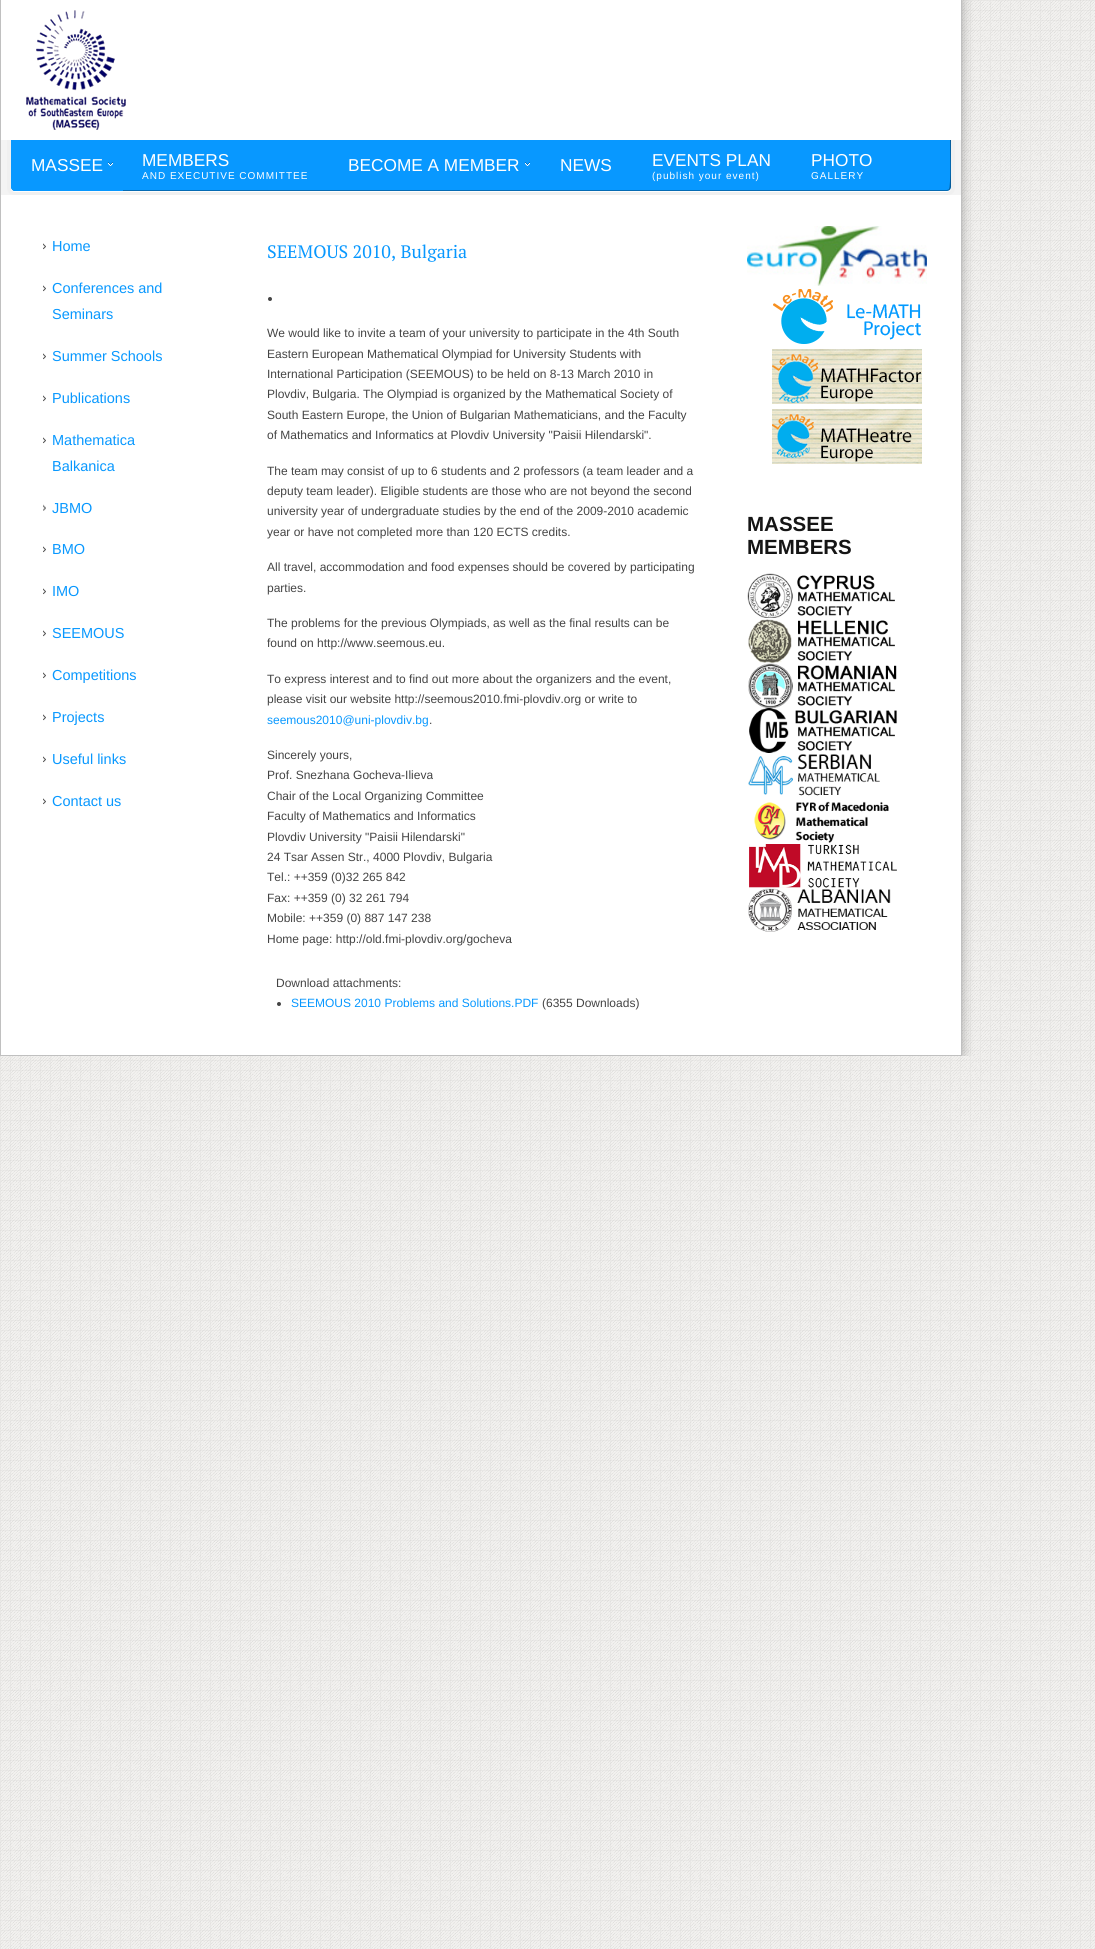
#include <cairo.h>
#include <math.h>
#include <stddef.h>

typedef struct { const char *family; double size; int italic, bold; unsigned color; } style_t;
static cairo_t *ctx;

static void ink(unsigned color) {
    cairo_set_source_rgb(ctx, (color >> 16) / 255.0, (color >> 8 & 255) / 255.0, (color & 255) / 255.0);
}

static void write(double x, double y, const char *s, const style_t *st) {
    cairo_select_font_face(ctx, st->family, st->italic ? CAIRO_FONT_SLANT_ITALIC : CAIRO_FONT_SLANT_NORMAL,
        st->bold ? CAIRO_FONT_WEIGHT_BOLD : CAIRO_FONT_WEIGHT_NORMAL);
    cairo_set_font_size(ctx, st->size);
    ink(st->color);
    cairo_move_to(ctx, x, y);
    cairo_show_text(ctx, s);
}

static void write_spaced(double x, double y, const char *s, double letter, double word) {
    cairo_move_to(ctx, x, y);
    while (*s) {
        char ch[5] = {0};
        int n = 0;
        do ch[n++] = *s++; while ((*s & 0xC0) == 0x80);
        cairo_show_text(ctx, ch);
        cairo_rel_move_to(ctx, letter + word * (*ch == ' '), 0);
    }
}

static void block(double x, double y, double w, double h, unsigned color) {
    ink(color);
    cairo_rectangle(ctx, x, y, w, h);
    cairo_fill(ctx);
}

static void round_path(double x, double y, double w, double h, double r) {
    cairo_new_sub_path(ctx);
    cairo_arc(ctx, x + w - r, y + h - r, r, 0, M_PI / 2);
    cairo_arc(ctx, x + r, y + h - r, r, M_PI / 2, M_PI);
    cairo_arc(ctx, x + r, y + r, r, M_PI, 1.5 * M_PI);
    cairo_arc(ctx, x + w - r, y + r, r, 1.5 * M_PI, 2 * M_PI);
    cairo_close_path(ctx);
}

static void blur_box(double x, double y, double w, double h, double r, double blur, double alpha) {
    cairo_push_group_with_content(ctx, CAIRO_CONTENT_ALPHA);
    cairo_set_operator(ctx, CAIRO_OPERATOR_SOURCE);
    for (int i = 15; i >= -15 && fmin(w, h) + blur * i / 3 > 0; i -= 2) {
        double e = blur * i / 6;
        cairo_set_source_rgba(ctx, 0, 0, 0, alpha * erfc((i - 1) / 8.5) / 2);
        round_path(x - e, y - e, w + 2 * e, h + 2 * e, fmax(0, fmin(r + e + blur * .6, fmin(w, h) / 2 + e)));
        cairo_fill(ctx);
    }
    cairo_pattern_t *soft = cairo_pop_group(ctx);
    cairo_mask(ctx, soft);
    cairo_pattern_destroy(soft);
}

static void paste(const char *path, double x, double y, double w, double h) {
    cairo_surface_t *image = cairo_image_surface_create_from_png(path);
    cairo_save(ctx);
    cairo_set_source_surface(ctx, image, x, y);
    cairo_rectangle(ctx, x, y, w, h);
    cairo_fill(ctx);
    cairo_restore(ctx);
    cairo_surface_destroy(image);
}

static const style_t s1 = {"Liberation Sans", 17.25, 0, 0, 0xffffff};
static const style_t s2 = {"Liberation Sans", 14.5, 0, 0, 0x0898ff};
static const style_t s3 = {"PT Serif", 18, 0, 0, 0x0898ff};
static const style_t s4 = {"Liberation Sans", 12, 0, 0, 0x444444};
static const style_t s5 = {"Liberation Sans", 12, 0, 0, 0x0898ff};
static const style_t s6 = {"Liberation Sans", 20.5, 0, 1, 0x151515};

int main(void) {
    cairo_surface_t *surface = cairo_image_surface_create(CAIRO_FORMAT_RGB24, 1095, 1949);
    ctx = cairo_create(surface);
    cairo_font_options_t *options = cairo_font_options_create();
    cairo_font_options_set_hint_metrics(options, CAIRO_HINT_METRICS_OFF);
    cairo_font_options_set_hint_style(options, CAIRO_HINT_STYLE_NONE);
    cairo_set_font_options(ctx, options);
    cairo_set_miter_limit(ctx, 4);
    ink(0xffffff);
    cairo_paint(ctx);
    paste("pic1.png", 0, 0, 1095, 1949);
    cairo_save(ctx);
    cairo_rectangle(ctx, 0, 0, 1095, 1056);
    cairo_clip(ctx);
    ink(0x000000);
    blur_box(0, 0, 962, 1056, 0, 6, 0.3);
    cairo_restore(ctx);
    block(1, 140, 960, 55, 0xf4f4f4);
    block(961, 0, 1, 1056, 0xc0c0c0);
    block(0, 1055, 962, 1, 0xc0c0c0);
    block(0, 0, 1, 1056, 0xc0c0c0);
    block(1, 0, 960, 140, 0xffffff);
    paste("pic2.png", 26, 10, 100, 120);
    cairo_new_path(ctx);
    cairo_move_to(ctx, 7, 140);
    cairo_line_to(ctx, 955, 140);
    cairo_line_to(ctx, 955, 188);
    cairo_curve_to(ctx, 955, 192, 952, 195, 948, 195);
    cairo_line_to(ctx, 14, 195);
    cairo_curve_to(ctx, 10, 195, 7, 192, 7, 188);
    cairo_close_path(ctx);
    cairo_fill(ctx);
    cairo_set_source_rgba(ctx, 0, 0, 0, 0.06);
    cairo_set_fill_rule(ctx, CAIRO_FILL_RULE_EVEN_ODD);
    cairo_new_path(ctx);
    cairo_move_to(ctx, 7, 140);
    cairo_line_to(ctx, 955, 140);
    cairo_line_to(ctx, 955, 188);
    cairo_curve_to(ctx, 955, 192, 952, 195, 948, 195);
    cairo_line_to(ctx, 14, 195);
    cairo_curve_to(ctx, 10, 195, 7, 192, 7, 188);
    cairo_close_path(ctx);
    cairo_move_to(ctx, 11, 140);
    cairo_line_to(ctx, 951, 140);
    cairo_line_to(ctx, 951, 188);
    cairo_curve_to(ctx, 951, 190, 950, 191, 948, 191);
    cairo_line_to(ctx, 14, 191);
    cairo_curve_to(ctx, 12, 191, 11, 190, 11, 188);
    cairo_close_path(ctx);
    cairo_fill(ctx);
    cairo_set_source_rgba(ctx, 1, 1, 1, 0.9);
    cairo_set_fill_rule(ctx, CAIRO_FILL_RULE_WINDING);
    cairo_new_path(ctx);
    cairo_move_to(ctx, 11, 187);
    cairo_curve_to(ctx, 11, 190, 12, 192, 15, 192);
    cairo_line_to(ctx, 947, 192);
    cairo_curve_to(ctx, 950, 192, 951, 190, 951, 187);
    cairo_curve_to(ctx, 951, 189, 949, 191, 947, 191);
    cairo_line_to(ctx, 15, 191);
    cairo_curve_to(ctx, 13, 191, 11, 189, 11, 187);
    cairo_close_path(ctx);
    cairo_fill(ctx);
    ink(0x0898ff);
    cairo_new_path(ctx);
    cairo_move_to(ctx, 11, 140);
    cairo_line_to(ctx, 951, 140);
    cairo_line_to(ctx, 951, 187);
    cairo_curve_to(ctx, 951, 189, 949, 191, 947, 191);
    cairo_line_to(ctx, 15, 191);
    cairo_curve_to(ctx, 13, 191, 11, 189, 11, 187);
    cairo_close_path(ctx);
    cairo_fill(ctx);
    cairo_set_source_rgba(ctx, 0, 0, 0, 0.4);
    cairo_new_path(ctx);
    cairo_move_to(ctx, 951, 140);
    cairo_line_to(ctx, 950, 140);
    cairo_curve_to(ctx, 950, 146, 951, 187, 949, 189);
    cairo_line_to(ctx, 950, 190);
    cairo_line_to(ctx, 951, 187);
    cairo_close_path(ctx);
    cairo_fill(ctx);
    cairo_set_source_rgba(ctx, 0, 0, 0, 0.3);
    cairo_new_path(ctx);
    cairo_move_to(ctx, 15, 191);
    cairo_line_to(ctx, 947, 191);
    cairo_line_to(ctx, 950, 190);
    cairo_line_to(ctx, 949, 189);
    cairo_line_to(ctx, 947, 190);
    cairo_line_to(ctx, 15, 190);
    cairo_line_to(ctx, 13, 189);
    cairo_line_to(ctx, 12, 190);
    cairo_close_path(ctx);
    cairo_fill(ctx);
    ink(0x0898ff);
    cairo_new_path(ctx);
    cairo_move_to(ctx, 11, 140);
    cairo_line_to(ctx, 123, 140);
    cairo_line_to(ctx, 123, 191);
    cairo_line_to(ctx, 15, 191);
    cairo_curve_to(ctx, 13, 191, 11, 189, 11, 187);
    cairo_close_path(ctx);
    cairo_fill(ctx);
    write(31, 171, "MASSEE", &s1);
    paste("pic3.png", 108, 162, 5, 4);
    write(142, 166, "MEMBERS", &s1);
    cairo_set_font_size(ctx, 10);
    write_spaced(142, 179, "AND EXECUTIVE COMMITTEE", 1, 0);
    write(348, 171, "BECOME A MEMBER", &s1);
    paste("pic3.png", 525, 162, 5, 4);
    write(560, 171, "NEWS", &s1);
    write(652, 166, "EVENTS PLAN", &s1);
    cairo_set_font_size(ctx, 10);
    write_spaced(652, 179, "(publish your event)", 1, 0);
    write(811, 166, "PHOTO", &s1);
    cairo_set_font_size(ctx, 10);
    write_spaced(811, 179, "GALLERY", 1, 0);
    block(1, 195, 960, 860, 0xffffff);
    paste("pic4.png", 43, 243, 3, 7);
    write(52, 251, "Home", &s2);
    paste("pic4.png", 43, 285, 3, 7);
    write(52, 293, "Conferences and", &s2);
    write(52, 319, "Seminars", &s2);
    paste("pic4.png", 43, 353, 3, 7);
    write(52, 361, "Summer Schools", &s2);
    paste("pic4.png", 43, 395, 3, 7);
    write(52, 403, "Publications", &s2);
    paste("pic4.png", 43, 437, 3, 7);
    write(52, 445, "Mathematica", &s2);
    write(52, 471, "Balkanica", &s2);
    paste("pic5.png", 43, 504, 3, 7);
    write(52, 513, "JBMO", &s2);
    paste("pic4.png", 43, 546, 3, 7);
    write(52, 554, "BMO", &s2);
    paste("pic4.png", 43, 588, 3, 7);
    write(52, 596, "IMO", &s2);
    paste("pic4.png", 43, 630, 3, 7);
    write(52, 638, "SEEMOUS", &s2);
    paste("pic4.png", 43, 672, 3, 7);
    write(52, 680, "Competitions", &s2);
    paste("pic4.png", 43, 714, 3, 7);
    write(52, 722, "Projects", &s2);
    paste("pic4.png", 43, 756, 3, 7);
    write(52, 764, "Useful links", &s2);
    paste("pic4.png", 43, 798, 3, 7);
    write(52, 806, "Contact us", &s2);
    write(267, 258, "SEEMOUS 2010, Bulgaria", &s3);
    ink(0x444444);
    cairo_new_path(ctx);
    cairo_arc(ctx, 270, 299, 2, 0, 2 * M_PI);
    cairo_fill(ctx);
    write(267, 337, "We would like to invite a team of your university to participate in the 4th South", &s4);
    write(267, 358, "Eastern European Mathematical Olympiad for University Students with", &s4);
    write(267, 378, "International Participation (SEEMOUS) to be held on 8-13 March 2010 in", &s4);
    write(267, 398, "Plovdiv, Bulgaria. The Olympiad is organized by the Mathematical Society of", &s4);
    write(267, 419, "South Eastern Europe, the Union of Bulgarian Mathematicians, and the Faculty", &s4);
    write(267, 439, "of Mathematics and Informatics at Plovdiv University \"Paisii Hilendarski\".", &s4);
    write(267, 475, "The team may consist of up to 6 students and 2 professors (a team leader and a", &s4);
    write(267, 495, "deputy team leader). Eligible students are those who are not beyond the second", &s4);
    write(267, 515, "university year of undergraduate studies by the end of the 2009-2010 academic", &s4);
    write(267, 536, "year or have not completed more than 120 ECTS credits.", &s4);
    write(267, 571, "All travel, accommodation and food expenses should be covered by participating", &s4);
    write(267, 592, "parties.", &s4);
    write(267, 627, "The problems for the previous Olympiads, as well as the final results can be", &s4);
    write(267, 647, "found on http://www.seemous.eu.", &s4);
    write(267, 683, "To express interest and to find out more about the organizers and the event,", &s4);
    write(267, 703, "please visit our website http://seemous2010.fmi-plovdiv.org or write to", &s4);
    write(267, 724, "seemous2010@uni-plovdiv.bg", &s5);
    write(429, 724, ".", &s4);
    write(267, 759, "Sincerely yours,", &s4);
    write(267, 779, "Prof. Snezhana Gocheva-Ilieva", &s4);
    write(267, 800, "Chair of the Local Organizing Committee", &s4);
    write(267, 820, "Faculty of Mathematics and Informatics", &s4);
    write(267, 841, "Plovdiv University \"Paisii Hilendarski\"", &s4);
    write(267, 861, "24 Tsar Assen Str., 4000 Plovdiv, Bulgaria", &s4);
    write(267, 881, "Tel.: ++359 (0)32 265 842", &s4);
    write(267, 902, "Fax: ++359 (0) 32 261 794", &s4);
    write(267, 922, "Mobile: ++359 (0) 887 147 238", &s4);
    write(267, 943, "Home page: http://old.fmi-plovdiv.org/gocheva", &s4);
    write(276, 987, "Download attachments:", &s4);
    cairo_new_path(ctx);
    cairo_arc(ctx, 279, 1004, 2, 0, 2 * M_PI);
    cairo_fill(ctx);
    write(291, 1007, "SEEMOUS 2010 Problems and Solutions.PDF", &s5);
    write(542, 1007, "(6355 Downloads)", &s4);
    paste("pic6.png", 747, 226, 180, 60);
    paste("pic7.png", 773, 289, 148, 55);
    paste("pic8.png", 772, 349, 150, 55);
    paste("pic9.png", 772, 409, 150, 55);
    write(747, 531, "MASSEE", &s6);
    write(747, 554, "MEMBERS", &s6);
    paste("pic10.png", 747, 573, 148, 45);
    paste("pic11.png", 748, 619, 147, 44);
    paste("pic12.png", 748, 663, 149, 45);
    paste("pic13.png", 749, 708, 148, 45);
    paste("pic14.png", 748, 754, 132, 42);
    paste("pic15.png", 754, 801, 135, 42);
    paste("pic16.png", 749, 844, 148, 44);
    paste("pic17.png", 748, 888, 143, 44);
    cairo_surface_write_to_png(surface, "screenshot.png");
    cairo_font_options_destroy(options);
    cairo_destroy(ctx);
    cairo_surface_destroy(surface);
    return 0;
}
